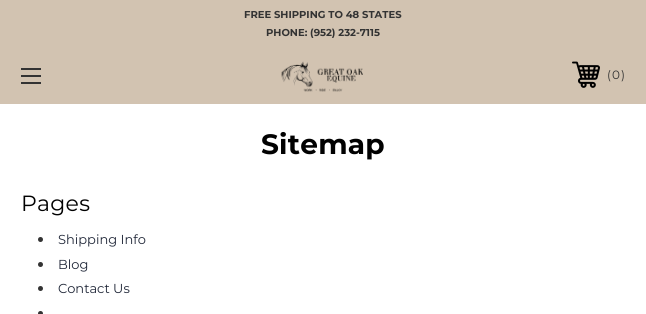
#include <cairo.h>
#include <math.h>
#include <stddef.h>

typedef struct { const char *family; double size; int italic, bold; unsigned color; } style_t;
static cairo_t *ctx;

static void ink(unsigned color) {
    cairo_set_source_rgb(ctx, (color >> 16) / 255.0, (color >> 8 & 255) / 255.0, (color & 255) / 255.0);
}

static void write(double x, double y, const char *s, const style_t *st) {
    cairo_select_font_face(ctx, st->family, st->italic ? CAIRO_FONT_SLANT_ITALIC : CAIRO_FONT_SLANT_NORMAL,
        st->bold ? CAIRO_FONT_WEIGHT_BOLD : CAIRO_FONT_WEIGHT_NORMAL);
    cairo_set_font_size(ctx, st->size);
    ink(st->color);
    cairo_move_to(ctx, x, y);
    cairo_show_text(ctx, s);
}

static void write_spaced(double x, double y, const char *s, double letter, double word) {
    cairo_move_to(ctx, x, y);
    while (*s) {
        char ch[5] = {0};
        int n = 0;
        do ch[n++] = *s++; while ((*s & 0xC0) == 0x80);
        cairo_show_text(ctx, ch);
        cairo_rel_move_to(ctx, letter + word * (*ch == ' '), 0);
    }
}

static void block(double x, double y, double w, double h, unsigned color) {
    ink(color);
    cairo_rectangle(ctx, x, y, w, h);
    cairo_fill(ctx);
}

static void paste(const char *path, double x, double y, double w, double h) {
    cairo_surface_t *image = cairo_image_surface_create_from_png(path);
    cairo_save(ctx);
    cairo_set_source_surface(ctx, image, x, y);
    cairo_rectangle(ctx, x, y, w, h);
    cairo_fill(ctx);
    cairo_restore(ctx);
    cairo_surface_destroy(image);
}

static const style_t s1 = {"Montserrat", 10, 0, 1, 0x333333};
static const style_t s2 = {"Montserrat", 12, 0, 0, 0x333333};
static const style_t s3 = {"Montserrat", 13, 0, 0, 0x202738};

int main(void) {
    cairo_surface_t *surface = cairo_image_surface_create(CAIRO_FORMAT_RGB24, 646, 314);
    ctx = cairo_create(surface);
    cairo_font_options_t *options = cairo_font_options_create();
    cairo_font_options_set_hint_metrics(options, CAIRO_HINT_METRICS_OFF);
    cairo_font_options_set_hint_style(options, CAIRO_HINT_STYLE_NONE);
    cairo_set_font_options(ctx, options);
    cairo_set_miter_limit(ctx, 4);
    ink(0xffffff);
    cairo_paint(ctx);
    block(0, 0, 646, 104, 0xd2c3b1);
    write(244, 18, "FREE SHIPPING TO 48 STATES", &s1);
    write(266, 36, "PHONE: (952) 232-7115", &s1);
    block(21, 75, 20, 2, 0x333333);
    block(21, 68, 20, 2, 0x333333);
    block(21, 82, 20, 2, 0x333333);
    paste("pic1.png", 281, 61, 82, 31);
    paste("pic2.png", 572, 61, 28, 27);
    write(607, 79, "(", &s2);
    write(612, 79, "0", &s2);
    write(621, 79, ")", &s2);
    cairo_select_font_face(ctx, "Montserrat", CAIRO_FONT_SLANT_NORMAL, CAIRO_FONT_WEIGHT_BOLD);
    cairo_set_font_size(ctx, 28);
    ink(0x010101);
    write_spaced(261, 154, "Sitemap", 0.25, 0);
    cairo_select_font_face(ctx, "Montserrat", CAIRO_FONT_SLANT_NORMAL, CAIRO_FONT_WEIGHT_NORMAL);
    cairo_set_font_size(ctx, 22);
    write_spaced(21, 211, "Pages", 0.25, 0);
    ink(0x333333);
    cairo_new_path(ctx);
    cairo_arc(ctx, 40.5, 239.5, 2.5, 0, 2 * M_PI);
    cairo_fill(ctx);
    write(58, 244, "Shipping Info", &s3);
    ink(0x333333);
    cairo_new_path(ctx);
    cairo_arc(ctx, 40.5, 264.5, 2.5, 0, 2 * M_PI);
    cairo_fill(ctx);
    write(58, 269, "Blog", &s3);
    ink(0x333333);
    cairo_new_path(ctx);
    cairo_arc(ctx, 40.5, 288.5, 2.5, 0, 2 * M_PI);
    cairo_fill(ctx);
    write(58, 293, "Contact Us", &s3);
    ink(0x333333);
    cairo_new_path(ctx);
    cairo_arc(ctx, 40.5, 313.5, 2.5, 0, 2 * M_PI);
    cairo_fill(ctx);
    cairo_surface_write_to_png(surface, "screenshot.png");
    cairo_font_options_destroy(options);
    cairo_destroy(ctx);
    cairo_surface_destroy(surface);
    return 0;
}
